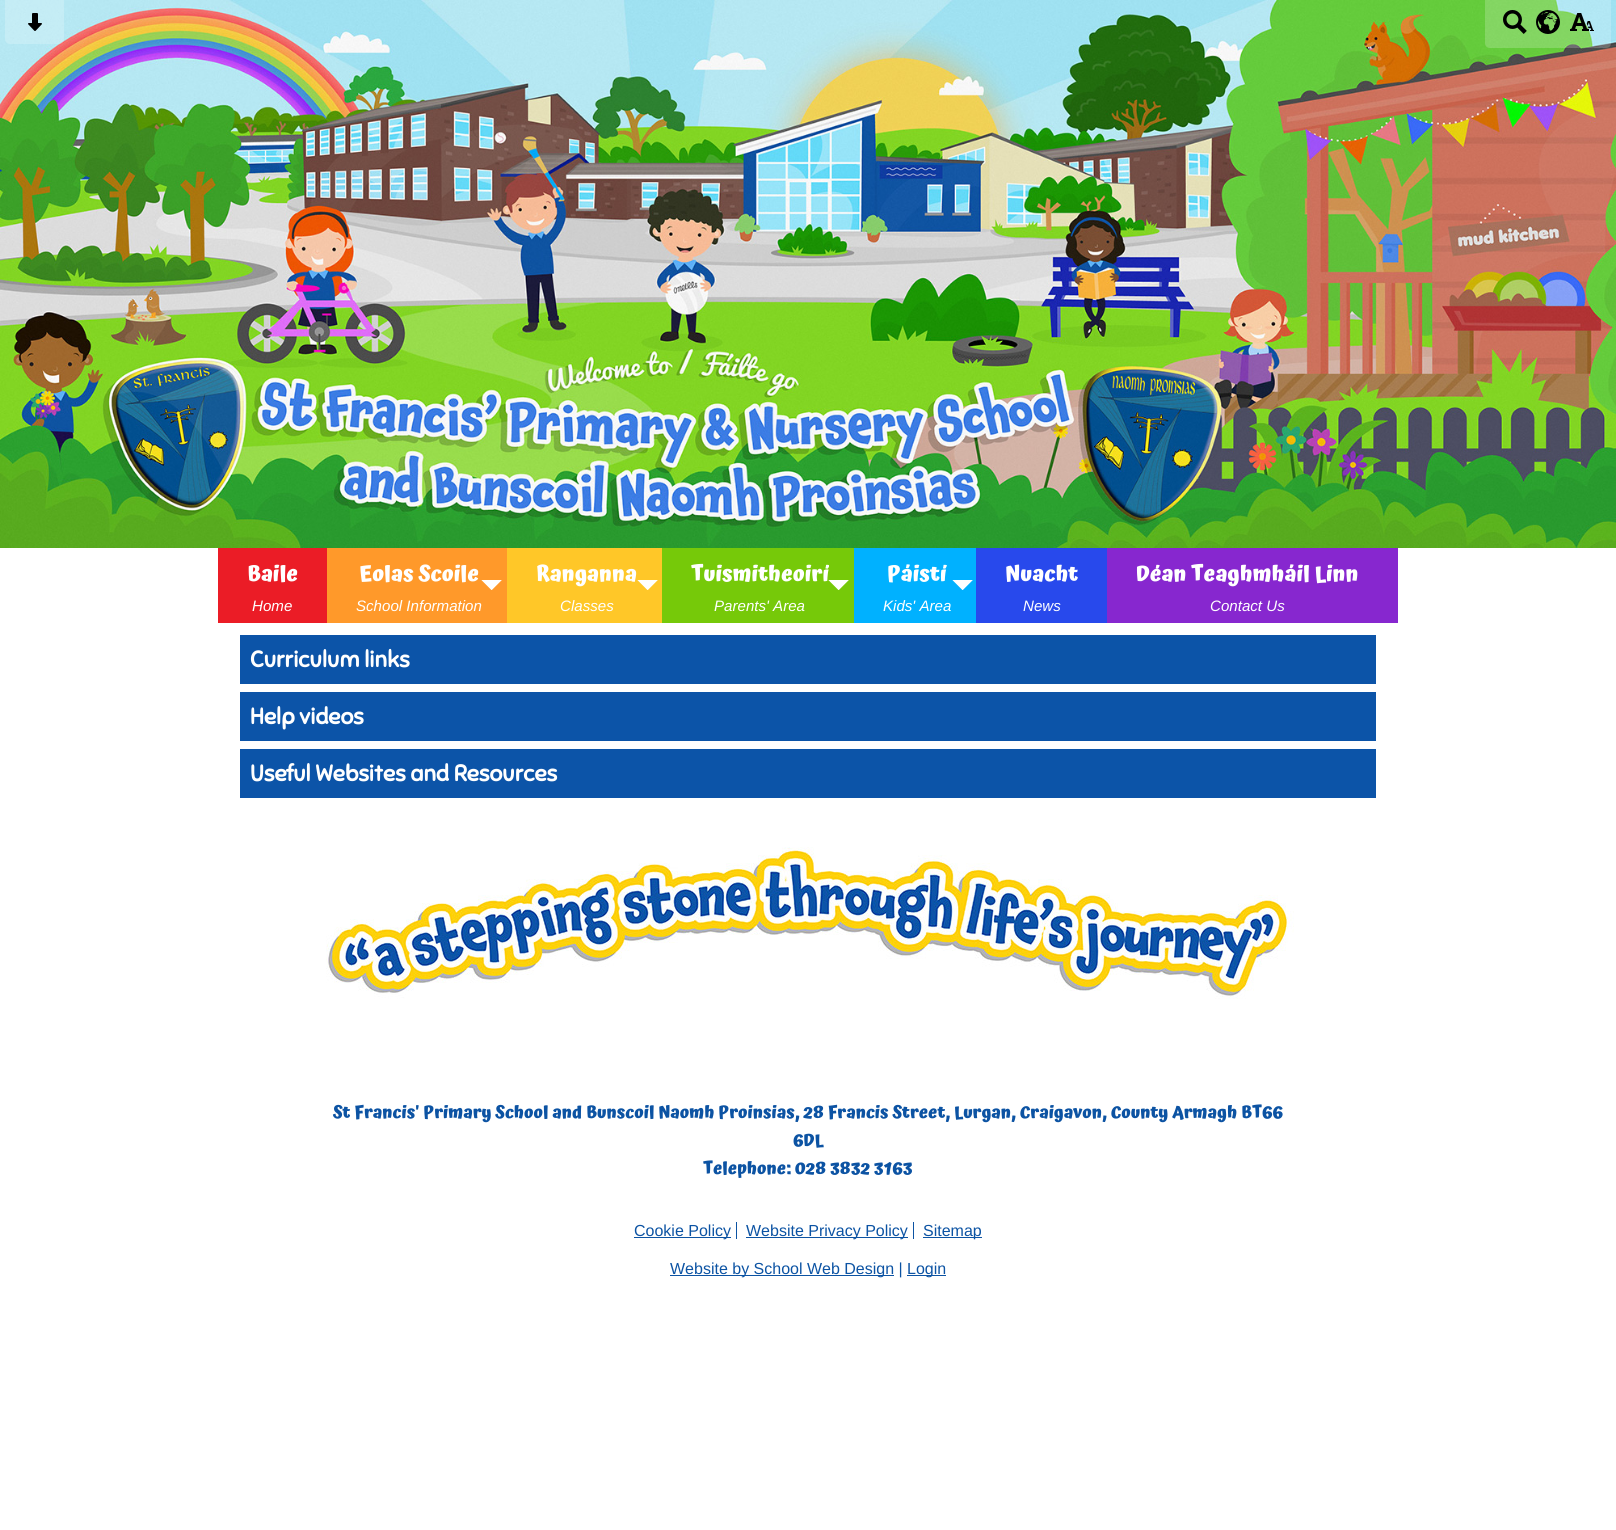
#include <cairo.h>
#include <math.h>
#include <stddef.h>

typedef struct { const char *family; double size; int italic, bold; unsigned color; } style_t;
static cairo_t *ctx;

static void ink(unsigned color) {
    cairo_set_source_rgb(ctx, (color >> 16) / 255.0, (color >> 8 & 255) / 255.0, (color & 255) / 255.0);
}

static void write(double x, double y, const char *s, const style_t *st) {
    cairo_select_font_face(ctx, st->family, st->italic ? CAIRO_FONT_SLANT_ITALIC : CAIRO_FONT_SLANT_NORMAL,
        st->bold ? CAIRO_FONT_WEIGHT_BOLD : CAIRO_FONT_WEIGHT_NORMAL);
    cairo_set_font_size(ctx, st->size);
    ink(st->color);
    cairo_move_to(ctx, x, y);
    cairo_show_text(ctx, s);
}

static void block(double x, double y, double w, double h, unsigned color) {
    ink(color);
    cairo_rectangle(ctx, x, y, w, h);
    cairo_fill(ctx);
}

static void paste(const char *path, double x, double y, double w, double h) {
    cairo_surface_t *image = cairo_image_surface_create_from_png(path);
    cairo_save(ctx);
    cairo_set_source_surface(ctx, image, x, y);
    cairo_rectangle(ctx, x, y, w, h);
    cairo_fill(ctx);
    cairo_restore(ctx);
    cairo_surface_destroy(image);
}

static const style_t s1 = {"Atma", 21.6, 0, 1, 0xffffff};
static const style_t s2 = {"Liberation Sans", 15.1, 1, 0, 0xffffff};
static const style_t s3 = {"Sniglet", 22.75, 0, 1, 0xffffff};
static const style_t s4 = {"Atma", 17.15, 0, 1, 0x0c53a3};
static const style_t s5 = {"Liberation Sans", 16, 0, 0, 0x0c53a3};

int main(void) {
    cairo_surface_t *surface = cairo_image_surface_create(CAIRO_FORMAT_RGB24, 1616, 1530);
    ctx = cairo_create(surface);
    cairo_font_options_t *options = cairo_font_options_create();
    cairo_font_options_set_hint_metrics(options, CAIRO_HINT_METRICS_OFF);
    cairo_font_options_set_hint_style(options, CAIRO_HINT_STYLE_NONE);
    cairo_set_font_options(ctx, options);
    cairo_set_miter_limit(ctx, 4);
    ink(0xffffff);
    cairo_paint(ctx);
    paste("pic1.png", 0, 0, 1616, 548);
    cairo_set_source_rgba(ctx, 1, 1, 1, 0.2);
    cairo_new_path(ctx);
    cairo_move_to(ctx, 5, 0);
    cairo_line_to(ctx, 64, 0);
    cairo_line_to(ctx, 64, 39);
    cairo_curve_to(ctx, 64, 42, 62, 44, 59, 44);
    cairo_line_to(ctx, 10, 44);
    cairo_curve_to(ctx, 7, 44, 5, 42, 5, 39);
    cairo_close_path(ctx);
    cairo_fill(ctx);
    paste("pic2.png", 28, 13, 14, 18);
    cairo_new_path(ctx);
    cairo_move_to(ctx, 1485, 0);
    cairo_line_to(ctx, 1611, 0);
    cairo_line_to(ctx, 1611, 43);
    cairo_curve_to(ctx, 1611, 46, 1609, 48, 1606, 48);
    cairo_line_to(ctx, 1490, 48);
    cairo_curve_to(ctx, 1487, 48, 1485, 46, 1485, 43);
    cairo_close_path(ctx);
    cairo_fill(ctx);
    paste("pic3.png", 1503, 10, 24, 24);
    paste("pic4.png", 1536, 10, 24, 24);
    paste("pic5.png", 1570, 13, 24, 18);
    block(1107, 548, 291, 75, 0x8727cf);
    block(218, 548, 109, 75, 0xeb1c26);
    write(247, 581, "Baile", &s1);
    write(252, 611, "Home", &s2);
    block(327, 548, 180, 75, 0xff992a);
    paste("pic6.png", 481, 580, 21, 10);
    write(359, 581, "Eolas Scoile", &s1);
    write(356, 611, "School Information", &s2);
    block(507, 548, 155, 75, 0xffc728);
    paste("pic7.png", 637, 580, 21, 10);
    write(536, 581, "Ranganna", &s1);
    write(560, 611, "Classes", &s2);
    block(662, 548, 192, 75, 0x76c909);
    paste("pic8.png", 828, 580, 21, 10);
    write(691, 581, "Tuismitheoirí", &s1);
    write(714, 611, "Parents' Area", &s2);
    block(854, 548, 122, 75, 0x00b1ff);
    paste("pic9.png", 952, 580, 21, 10);
    write(887, 581, "Páistí", &s1);
    write(883, 611, "Kids' Area", &s2);
    block(976, 548, 131, 75, 0x2849ec);
    write(1005, 581, "Nuacht", &s1);
    write(1023, 611, "News", &s2);
    write(1136, 581, "Déan Teaghmháil Linn", &s1);
    write(1210, 611, "Contact Us", &s2);
    block(240, 635, 1136, 49, 0x0c54a8);
    write(250, 667, "Curriculum links", &s3);
    block(240, 692, 1136, 49, 0x0c54a8);
    write(250, 724, "Help videos", &s3);
    block(240, 749, 1136, 49, 0x0c54a8);
    write(250, 781, "Useful Websites and Resources", &s3);
    paste("pic10.png", 326, 847, 968, 152);
    write(333, 1118, "St Francis' Primary School and Bunscoil Naomh Proinsias, 28 Francis Street, Lurgan, Craigavon, County Armagh BT66", &s4);
    write(793, 1146, "6DL", &s4);
    write(703, 1174, "Telephone: 028 3832 3163", &s4);
    block(634, 1237, 97, 1, 0x0c53a3);
    write(634, 1236, "Cookie Policy", &s5);
    block(736, 1222, 1, 17, 0x0c53a3);
    block(746, 1237, 162, 1, 0x0c53a3);
    write(746, 1236, "Website Privacy Policy", &s5);
    block(913, 1222, 1, 17, 0x0c53a3);
    block(923, 1237, 59, 1, 0x0c53a3);
    write(923, 1236, "Sitemap", &s5);
    block(670, 1275, 224, 1, 0x0c53a3);
    write(670, 1274, "Website by School Web Design |", &s5);
    block(907, 1275, 39, 1, 0x0c53a3);
    write(907, 1274, "Login", &s5);
    cairo_surface_write_to_png(surface, "screenshot.png");
    cairo_font_options_destroy(options);
    cairo_destroy(ctx);
    cairo_surface_destroy(surface);
    return 0;
}
